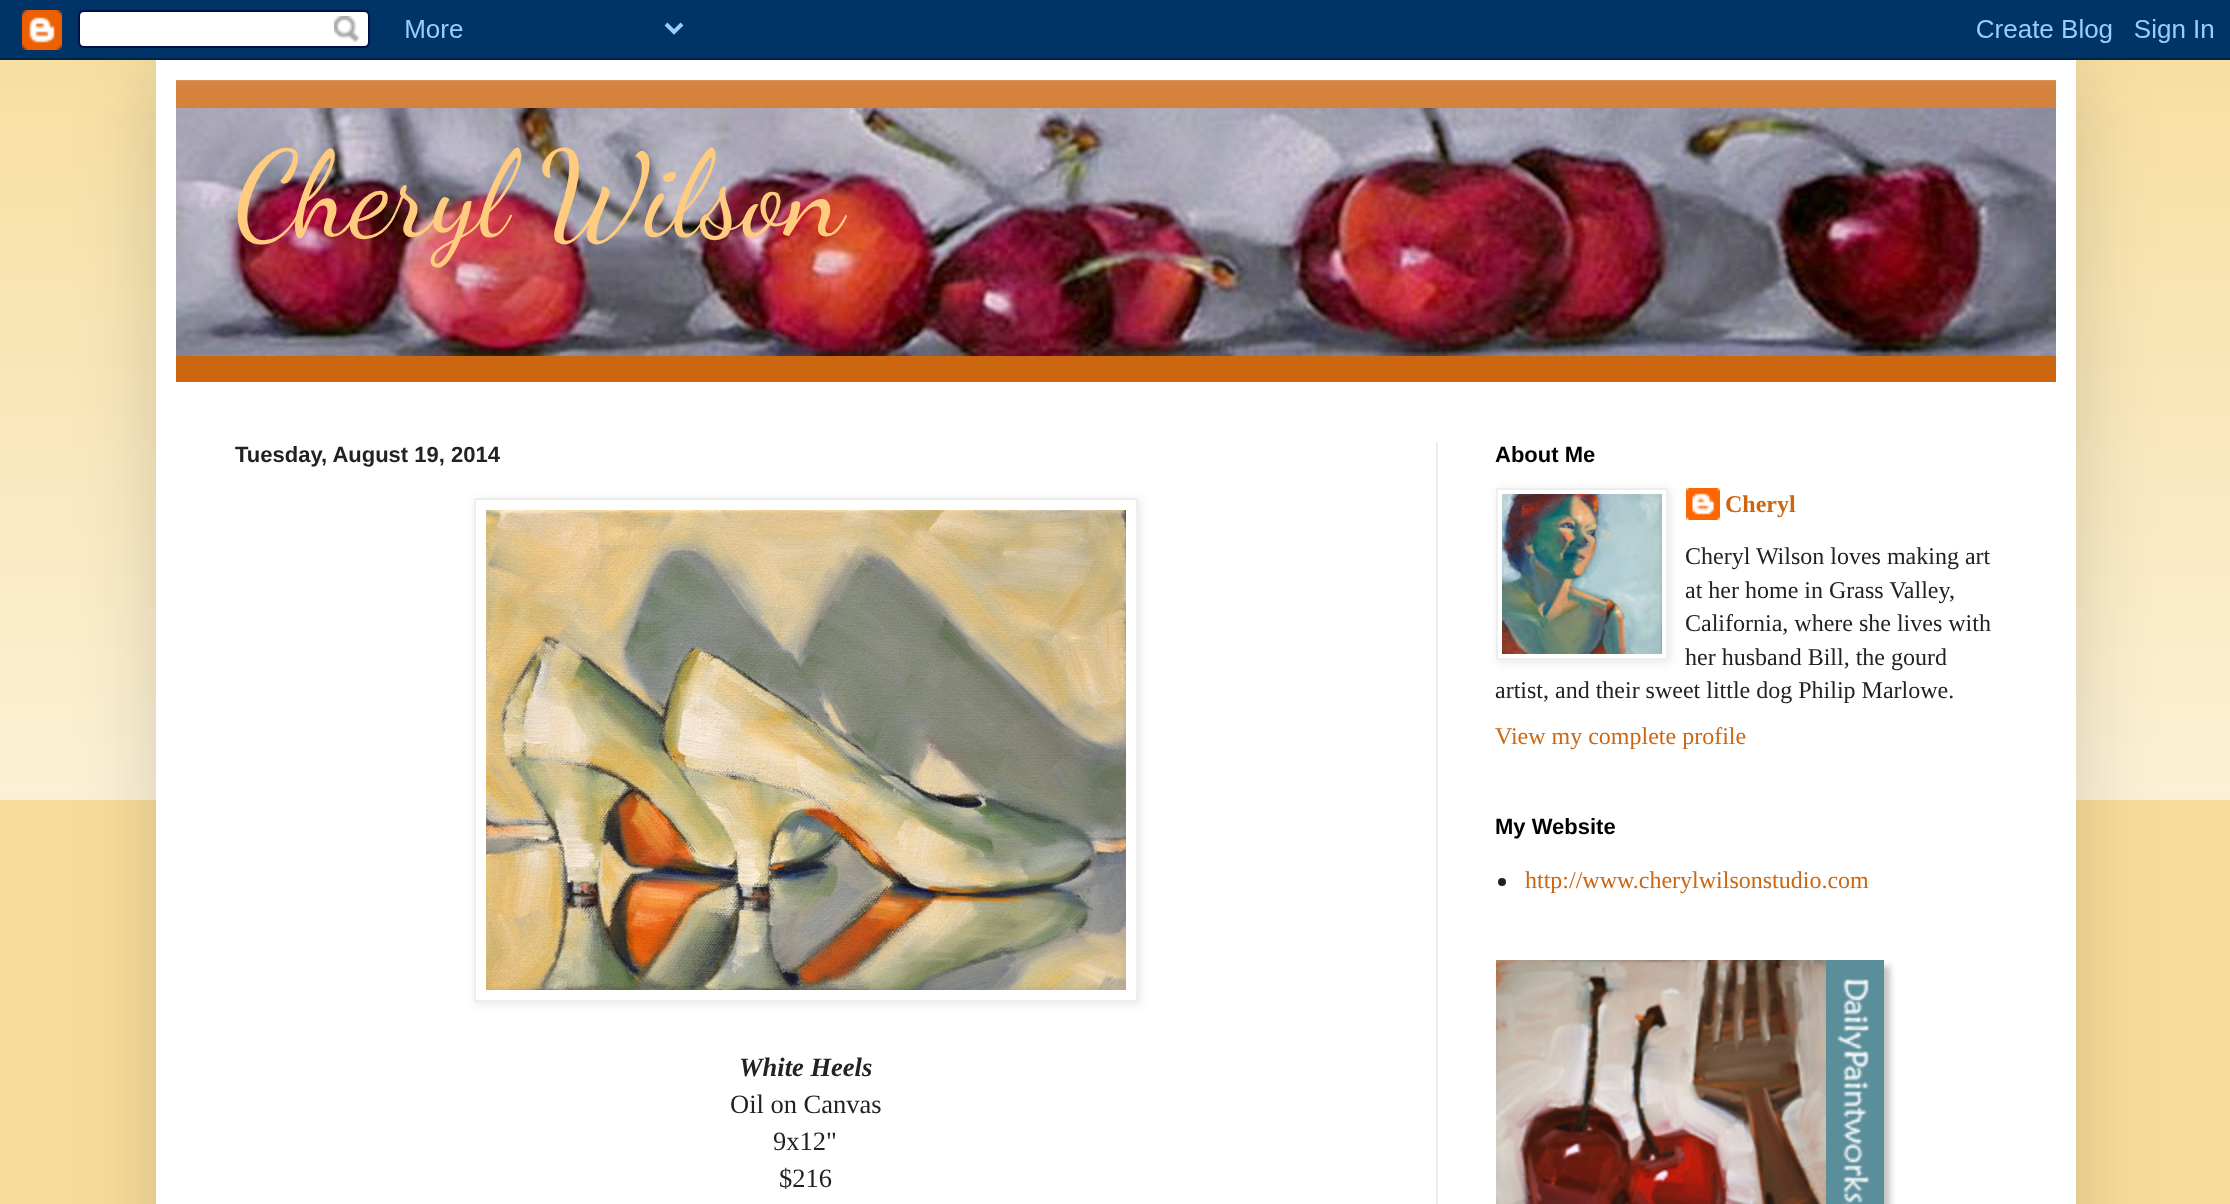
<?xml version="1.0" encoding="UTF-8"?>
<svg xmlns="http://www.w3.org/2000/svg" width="2230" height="1204">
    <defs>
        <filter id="blur1" x="-50%" y="-200%" width="200%" height="500%"><feGaussianBlur stdDeviation="40"/></filter>
        <clipPath id="clip1"><path d="M 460 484 H 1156 V 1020 H 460 Z M 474 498 H 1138 V 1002 H 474 Z" clip-rule="evenodd"/></clipPath>
        <filter id="blur2" x="-50%" y="-200%" width="200%" height="500%"><feGaussianBlur stdDeviation="5"/></filter>
        <clipPath id="clip2"><path d="M 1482 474 H 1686 V 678 H 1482 Z M 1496 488 H 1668 V 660 H 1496 Z" clip-rule="evenodd"/></clipPath>
        <filter id="blur3" x="-50%" y="-200%" width="200%" height="500%"><feGaussianBlur stdDeviation="3"/></filter>
    </defs>
    <rect width="100%" height="100%" fill="#F7DC99"/>
    <image x="0" y="60" width="2230" height="740" href="img_02.png"/>
    <rect x="156" y="60" width="1920" height="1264" fill="#000000" fill-opacity="0.15" filter="url(#blur1)"/>
    <image x="0" y="0" width="2230" height="60" href="img_01.png"/>
    <rect x="156" y="60" width="1920" height="1144" fill="#FFFFFF"/>
    <rect x="176" y="80" width="1880" height="302" fill="#CC6611"/>
    <image x="176" y="80" width="1880" height="28" href="img_03.png"/>
    <image x="176" y="108" width="1880" height="248" href="img_04.png"/>
    <text x="235" y="234" font-family="Dancing Script" font-size="120" fill="#FFCC7F">Cheryl Wilson</text>
    <rect x="1436" y="442" width="2" height="762" fill="#EEEEEE"/>
    <text x="235" y="462" font-family="Liberation Sans" font-size="22" font-weight="700" fill="#222222">Tuesday, August 19, 2014</text>
    <g clip-path="url(#clip1)">
        <rect x="476" y="500" width="664" height="504" fill="#000000" fill-opacity="0.1" filter="url(#blur2)"/>
    </g>
    <rect x="475" y="499" width="662" height="502" fill="none" stroke="#EEEEEE" stroke-width="2"/>
    <image x="486" y="510" width="640" height="480" href="img_05.png"/>
    <text x="739" y="1076" font-family="Liberation Serif" font-size="26.5" font-weight="700" font-style="italic" fill="#222222">White Heels</text>
    <text x="730" y="1113" font-family="Liberation Serif" font-size="26.5" fill="#222222">Oil on Canvas</text>
    <text x="773" y="1150" font-family="Liberation Serif" font-size="26.5" fill="#222222">9x12"</text>
    <text x="779" y="1187" font-family="Liberation Serif" font-size="26.5" fill="#222222">$216</text>
    <text x="1495" y="462" font-family="Liberation Sans" font-size="22" font-weight="700" fill="#000000">About Me</text>
    <g clip-path="url(#clip2)">
        <rect x="1498" y="490" width="172" height="172" fill="#000000" fill-opacity="0.1" filter="url(#blur2)"/>
    </g>
    <rect x="1497" y="489" width="170" height="170" fill="none" stroke="#EEEEEE" stroke-width="2"/>
    <image x="1502" y="494" width="160" height="160" href="img_06.png"/>
    <image x="1686" y="488" width="34" height="32" href="img_07.png"/>
    <text x="1725" y="512" font-family="Liberation Serif" font-size="24" font-weight="700" fill="#CC6611">Cheryl</text>
    <text font-family="Liberation Serif" font-size="24" fill="#222222">
        <tspan x="1685" y="564">Cheryl Wilson loves making art</tspan>
        <tspan x="1685" y="598">at her home in Grass Valley,</tspan>
        <tspan x="1685" y="631">California, where she lives with</tspan>
        <tspan x="1685" y="665">her husband Bill, the gourd</tspan>
    </text>
    <text x="1495" y="698" font-family="Liberation Serif" font-size="24" fill="#222222">artist, and their sweet little dog Philip Marlowe.</text>
    <text x="1495" y="744" font-family="Liberation Serif" font-size="24" fill="#CC6611">View my complete profile</text>
    <text x="1495" y="834" font-family="Liberation Sans" font-size="22" font-weight="700" fill="#000000">My Website</text>
    <circle cx="1502" cy="882" r="4" fill="#222222"/>
    <text x="1525" y="888" font-family="Liberation Serif" font-size="24" fill="#CC6611">http://www.cherylwilsonstudio.com</text>
    <rect x="1502" y="966" width="388" height="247" fill="#000000" fill-opacity="0.23" filter="url(#blur3)"/>
    <image x="1496" y="960" width="330" height="244" href="img_08.png"/>
    <image x="1826" y="960" width="58" height="244" href="img_09.png"/>
</svg>
